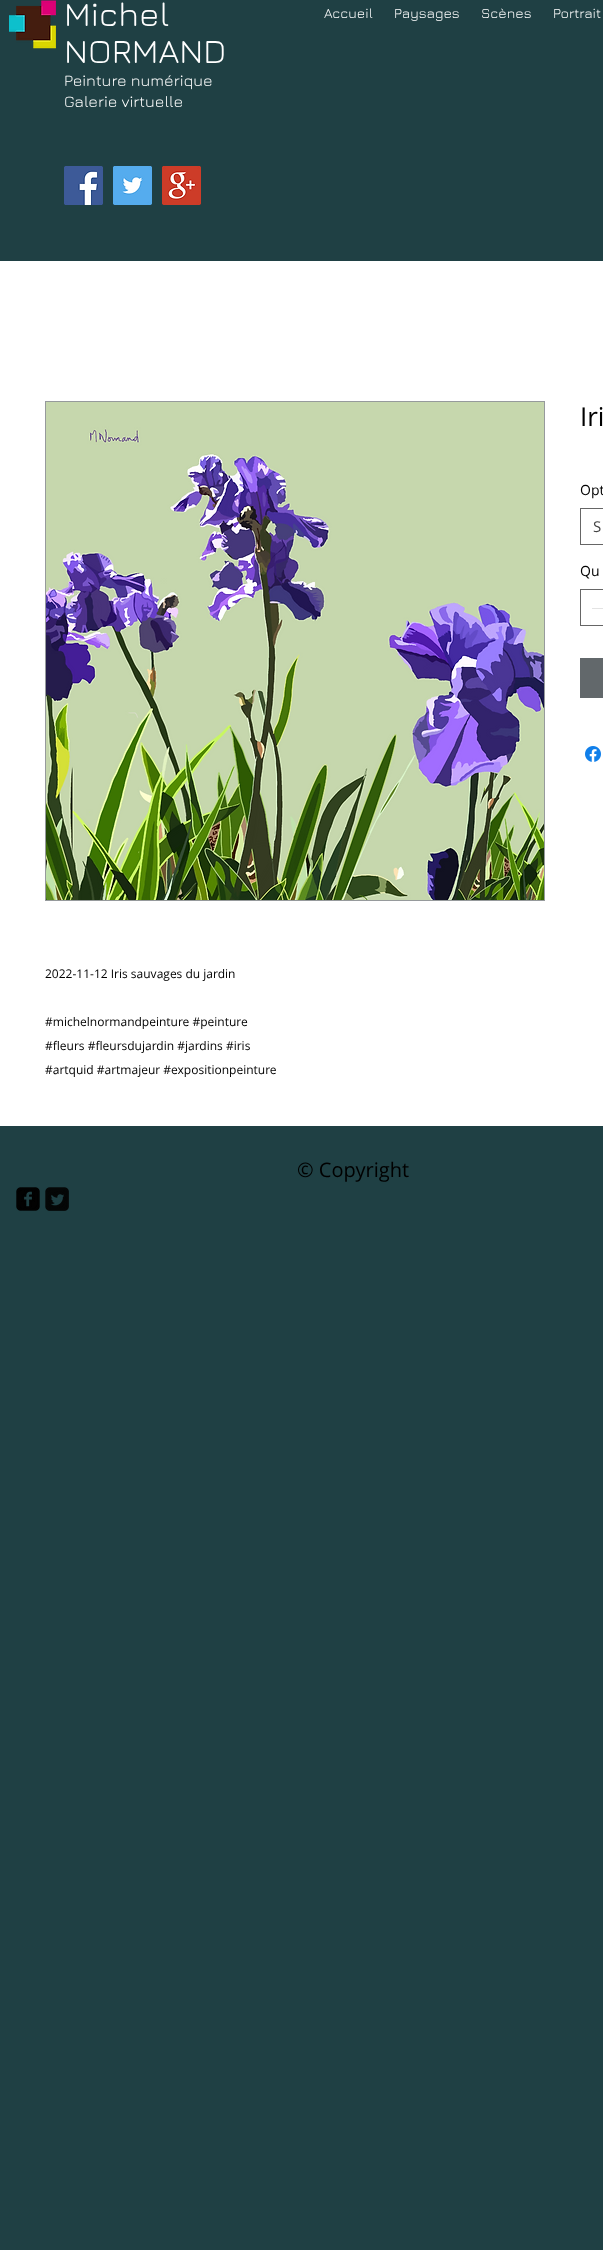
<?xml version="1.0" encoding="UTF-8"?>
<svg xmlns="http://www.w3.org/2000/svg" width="603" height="2250">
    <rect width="100%" height="100%" fill="#1F4044"/>
    <image x="9" y="0" width="47" height="49" href="img_01.png"/>
    <text font-family="Jura" font-size="34" fill="#FFFFFF">
        <tspan x="64" y="26">Michel</tspan>
        <tspan x="64" y="63">NORMAND</tspan>
    </text>
    <text font-family="Jura" font-size="16" fill="#FFFFFF">
        <tspan x="64" y="86">Peinture numérique</tspan>
        <tspan x="64" y="107">Galerie virtuelle</tspan>
    </text>
    <text x="324" y="18" font-family="Jura" font-size="14" fill="#FFFFFF">Accueil</text>
    <text x="394" y="18" font-family="Jura" font-size="14" fill="#FFFFFF">Paysages</text>
    <text x="481" y="18" font-family="Jura" font-size="14" fill="#FFFFFF">Scènes</text>
    <text x="553" y="18" font-family="Jura" font-size="14" fill="#FFFFFF">Portrait</text>
    <image x="64" y="166" width="39" height="39" href="img_02.png"/>
    <image x="113" y="166" width="39" height="39" href="img_03.png"/>
    <image x="162" y="166" width="39" height="39" href="img_04.png"/>
    <rect x="0" y="261" width="603" height="865" fill="#FFFFFF"/>
    <text x="580" y="426" font-family="Open Sans" font-size="26" fill="#000000">Iri</text>
    <text x="580" y="495" font-family="Open Sans" font-size="14" fill="#000000">Opt</text>
    <rect x="580.5" y="508.5" width="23" height="36" fill="none" stroke="#666666"/>
    <text x="593" y="532" font-family="Open Sans" font-size="15" fill="#444444">S</text>
    <text x="580" y="576" font-family="Open Sans" font-size="14" fill="#000000">Qu</text>
    <rect x="580.5" y="589.5" width="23" height="36" fill="none" stroke="#666666"/>
    <rect x="592" y="608" width="11" height="1" fill="#E3E3E3"/>
    <rect x="580" y="658" width="23" height="40" fill="#62686B"/>
    <image x="585" y="746" width="16" height="16" href="img_05.png"/>
    <rect x="45.5" y="401.5" width="499" height="499" fill="none" stroke="#969A9C"/>
    <image x="46" y="402" width="498" height="498" href="img_06.png"/>
    <text x="45" y="978" font-family="Open Sans" font-size="12" fill="#000000">2022-11-12 Iris sauvages du jardin</text>
    <text x="45" y="1026" font-family="Open Sans" font-size="12" fill="#000000">#michelnormandpeinture #peinture</text>
    <text x="45" y="1050" font-family="Open Sans" font-size="12" fill="#000000">#fleurs #fleursdujardin #jardins #iris</text>
    <text x="45" y="1074" font-family="Open Sans" font-size="12" fill="#000000">#artquid #artmajeur #expositionpeinture</text>
    <text x="297" y="1177" font-family="Open Sans" font-size="20" fill="#000000">© Copyright</text>
    <image x="16" y="1187" width="24" height="24" href="img_07.png"/>
    <image x="45" y="1187" width="24" height="24" href="img_08.png"/>
</svg>
